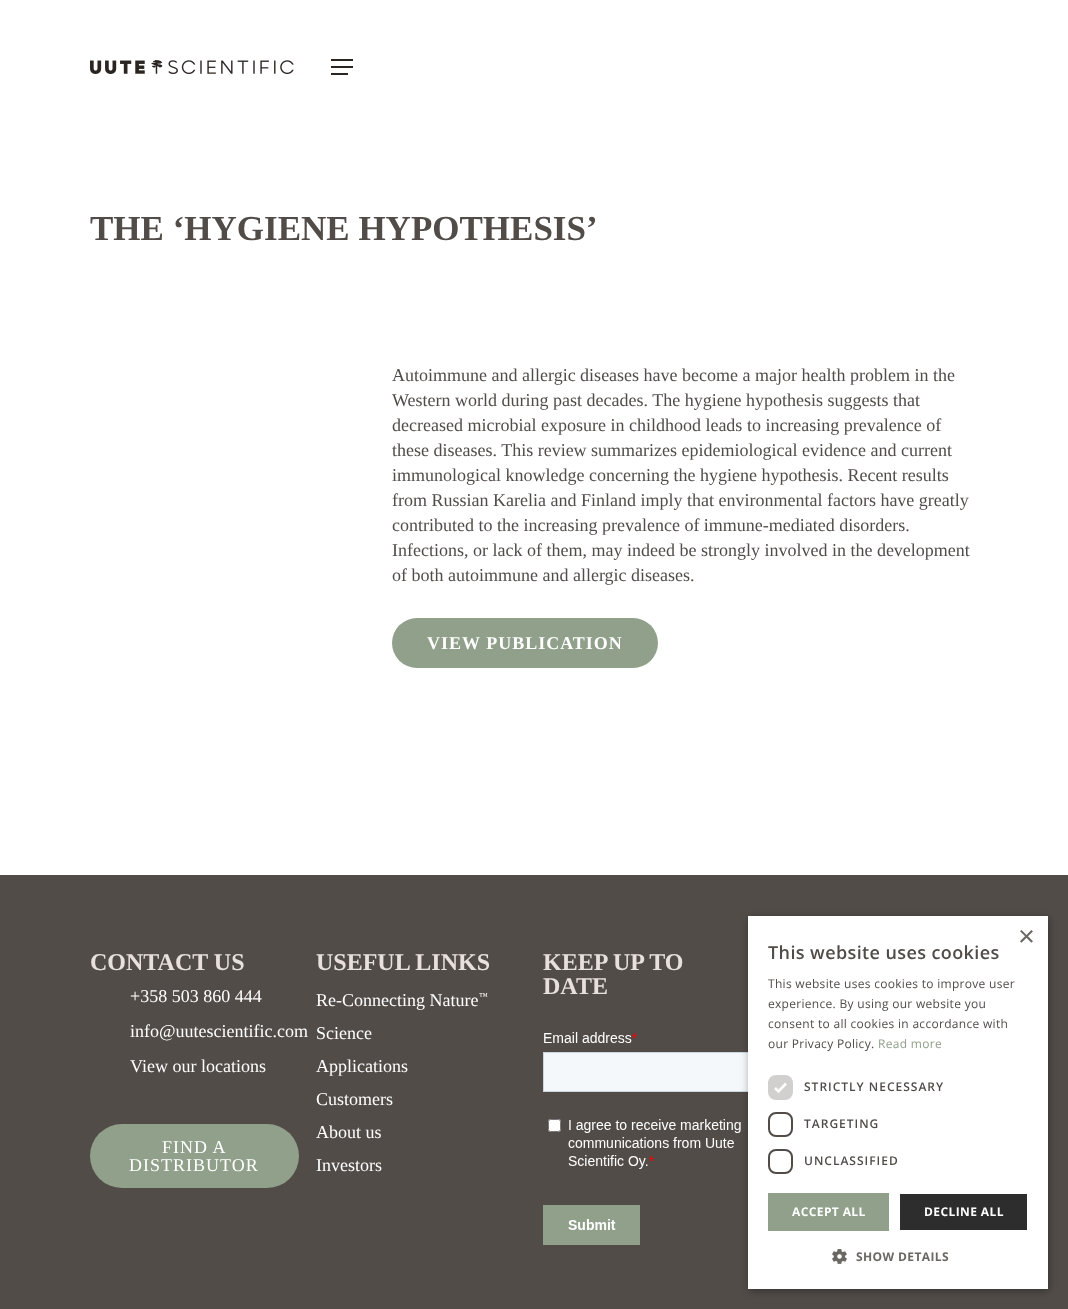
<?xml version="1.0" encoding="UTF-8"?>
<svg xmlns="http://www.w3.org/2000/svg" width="1068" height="1309">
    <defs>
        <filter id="blur1" x="-50%" y="-200%" width="200%" height="500%"><feGaussianBlur stdDeviation="4"/></filter>
    </defs>
    <rect width="100%" height="100%" fill="#FFFFFF"/>
    <image x="90" y="60" width="204" height="14" href="img_01.png"/>
    <rect x="331" y="59" width="22" height="2" fill="#2B2522"/>
    <rect x="331" y="73" width="17" height="2" fill="#2B2522"/>
    <rect x="331" y="66" width="22" height="2" fill="#2B2522"/>
    <text x="90" y="240" font-family="Liberation Serif" font-size="35" font-weight="700" fill="#514C48">THE ‘HYGIENE HYPOTHESIS’</text>
    <text font-family="Liberation Serif" font-size="18" fill="#514C48">
        <tspan x="392" y="381">Autoimmune and allergic diseases have become a major health problem in the</tspan>
        <tspan x="392" y="406">Western world during past decades. The hygiene hypothesis suggests that</tspan>
        <tspan x="392" y="431">decreased microbial exposure in childhood leads to increasing prevalence of</tspan>
        <tspan x="392" y="456">these diseases. This review summarizes epidemiological evidence and current</tspan>
        <tspan x="392" y="481">immunological knowledge concerning the hygiene hypothesis. Recent results</tspan>
        <tspan x="392" y="506">from Russian Karelia and Finland imply that environmental factors have greatly</tspan>
        <tspan x="392" y="531">contributed to the increasing prevalence of immune-mediated disorders.</tspan>
        <tspan x="392" y="556">Infections, or lack of them, may indeed be strongly involved in the development</tspan>
        <tspan x="392" y="581">of both autoimmune and allergic diseases.</tspan>
    </text>
    <rect x="392" y="618" width="266" height="50" rx="25" fill="#90A08A"/>
    <text x="427" y="649" font-family="Liberation Serif" font-size="18" font-weight="700" letter-spacing="1" fill="#FFFFFF">VIEW PUBLICATION</text>
    <rect x="0" y="875" width="1068" height="434" fill="#514C48"/>
    <text x="90" y="970" font-family="Liberation Serif" font-size="24" font-weight="700" fill="#E8E0DD">CONTACT US</text>
    <text font-family="Liberation Serif" font-size="18" fill="#FFFFFF">
        <tspan x="130" y="1002">+358 503 860 444</tspan>
        <tspan x="130" y="1037">info@uutescientific.com</tspan>
        <tspan x="130" y="1072">View our locations</tspan>
    </text>
    <rect x="90" y="1124" width="209" height="64" rx="32" fill="#90A08A"/>
    <text x="162" y="1153" font-family="Liberation Serif" font-size="18" letter-spacing="1" fill="#FFFFFF">FIND A</text>
    <text x="129" y="1171" font-family="Liberation Serif" font-size="18" letter-spacing="1" fill="#FFFFFF">DISTRIBUTOR</text>
    <text x="316" y="970" font-family="Liberation Serif" font-size="24" font-weight="700" fill="#E8E0DD">USEFUL LINKS</text>
    <text x="316" y="1006" font-family="Liberation Serif" font-size="18" fill="#FFFFFF">Re-Connecting Nature</text>
    <text x="479" y="999" font-family="Liberation Serif" font-size="9" fill="#FFFFFF">™</text>
    <text font-family="Liberation Serif" font-size="18" fill="#FFFFFF">
        <tspan x="316" y="1039">Science</tspan>
        <tspan x="316" y="1072">Applications</tspan>
        <tspan x="316" y="1105">Customers</tspan>
        <tspan x="316" y="1138">About us</tspan>
        <tspan x="316" y="1171">Investors</tspan>
    </text>
    <text font-family="Liberation Serif" font-size="24" font-weight="700" fill="#E8E0DD">
        <tspan x="543" y="970">KEEP UP TO</tspan>
        <tspan x="543" y="994">DATE</tspan>
    </text>
    <image x="543" y="1032" width="205" height="213" href="img_02.png"/>
    <rect x="749" y="918" width="300" height="373" fill="#000000" fill-opacity="0.35" filter="url(#blur1)"/>
    <rect x="748" y="916" width="300" height="373" fill="#FFFFFF"/>
    <text x="1018" y="946" font-family="Liberation Sans" font-size="29" fill="#6B6763">×</text>
    <text x="768" y="959" font-family="Open Sans" font-size="18" font-weight="600" letter-spacing="0.4" fill="#514C48">This website uses cookies</text>
    <text font-family="Open Sans" font-size="12" letter-spacing="0.3" fill="#514C48">
        <tspan x="768" y="988">This website uses cookies to improve user</tspan>
        <tspan x="768" y="1008">experience. By using our website you</tspan>
        <tspan x="768" y="1028">consent to all cookies in accordance with</tspan>
        <tspan x="768" y="1048">our Privacy Policy.</tspan>
    </text>
    <text x="878" y="1048" font-family="Open Sans" font-size="12" letter-spacing="0.3" fill="#90A08A">Read more</text>
    <rect x="768" y="1075" width="25" height="25" rx="8" fill="#D2D0CF"/>
    <path d="M 775 1088 L 778.5 1091.5 L 786 1083.5" fill="none" stroke="#FFFFFF" stroke-width="2.6"/>
    <text x="804" y="1091" font-family="Open Sans" font-size="12" font-weight="600" letter-spacing="1" fill="#514C48">STRICTLY NECESSARY</text>
    <rect x="769" y="1113" width="23" height="23" rx="7" fill="none" stroke="#514C48" stroke-width="2"/>
    <text x="804" y="1128" font-family="Open Sans" font-size="12" font-weight="600" letter-spacing="1" fill="#514C48">TARGETING</text>
    <rect x="769" y="1150" width="23" height="23" rx="7" fill="none" stroke="#514C48" stroke-width="2"/>
    <text x="804" y="1165" font-family="Open Sans" font-size="12" font-weight="600" letter-spacing="1" fill="#514C48">UNCLASSIFIED</text>
    <rect x="768" y="1193" width="121" height="38" fill="#90A08A"/>
    <text x="792" y="1216" font-family="Open Sans" font-size="12" font-weight="700" letter-spacing="0.4" fill="#FFFFFF">ACCEPT ALL</text>
    <rect x="900" y="1194" width="127" height="36" fill="#2D2D2D"/>
    <text x="924" y="1216" font-family="Open Sans" font-size="12" font-weight="700" letter-spacing="0.4" fill="#FFFFFF">DECLINE ALL</text>
    <image x="832" y="1249" width="15" height="15" href="img_03.png"/>
    <text x="856" y="1261" font-family="Open Sans" font-size="12" font-weight="700" letter-spacing="0.4" fill="#6B6763">SHOW DETAILS</text>
</svg>
